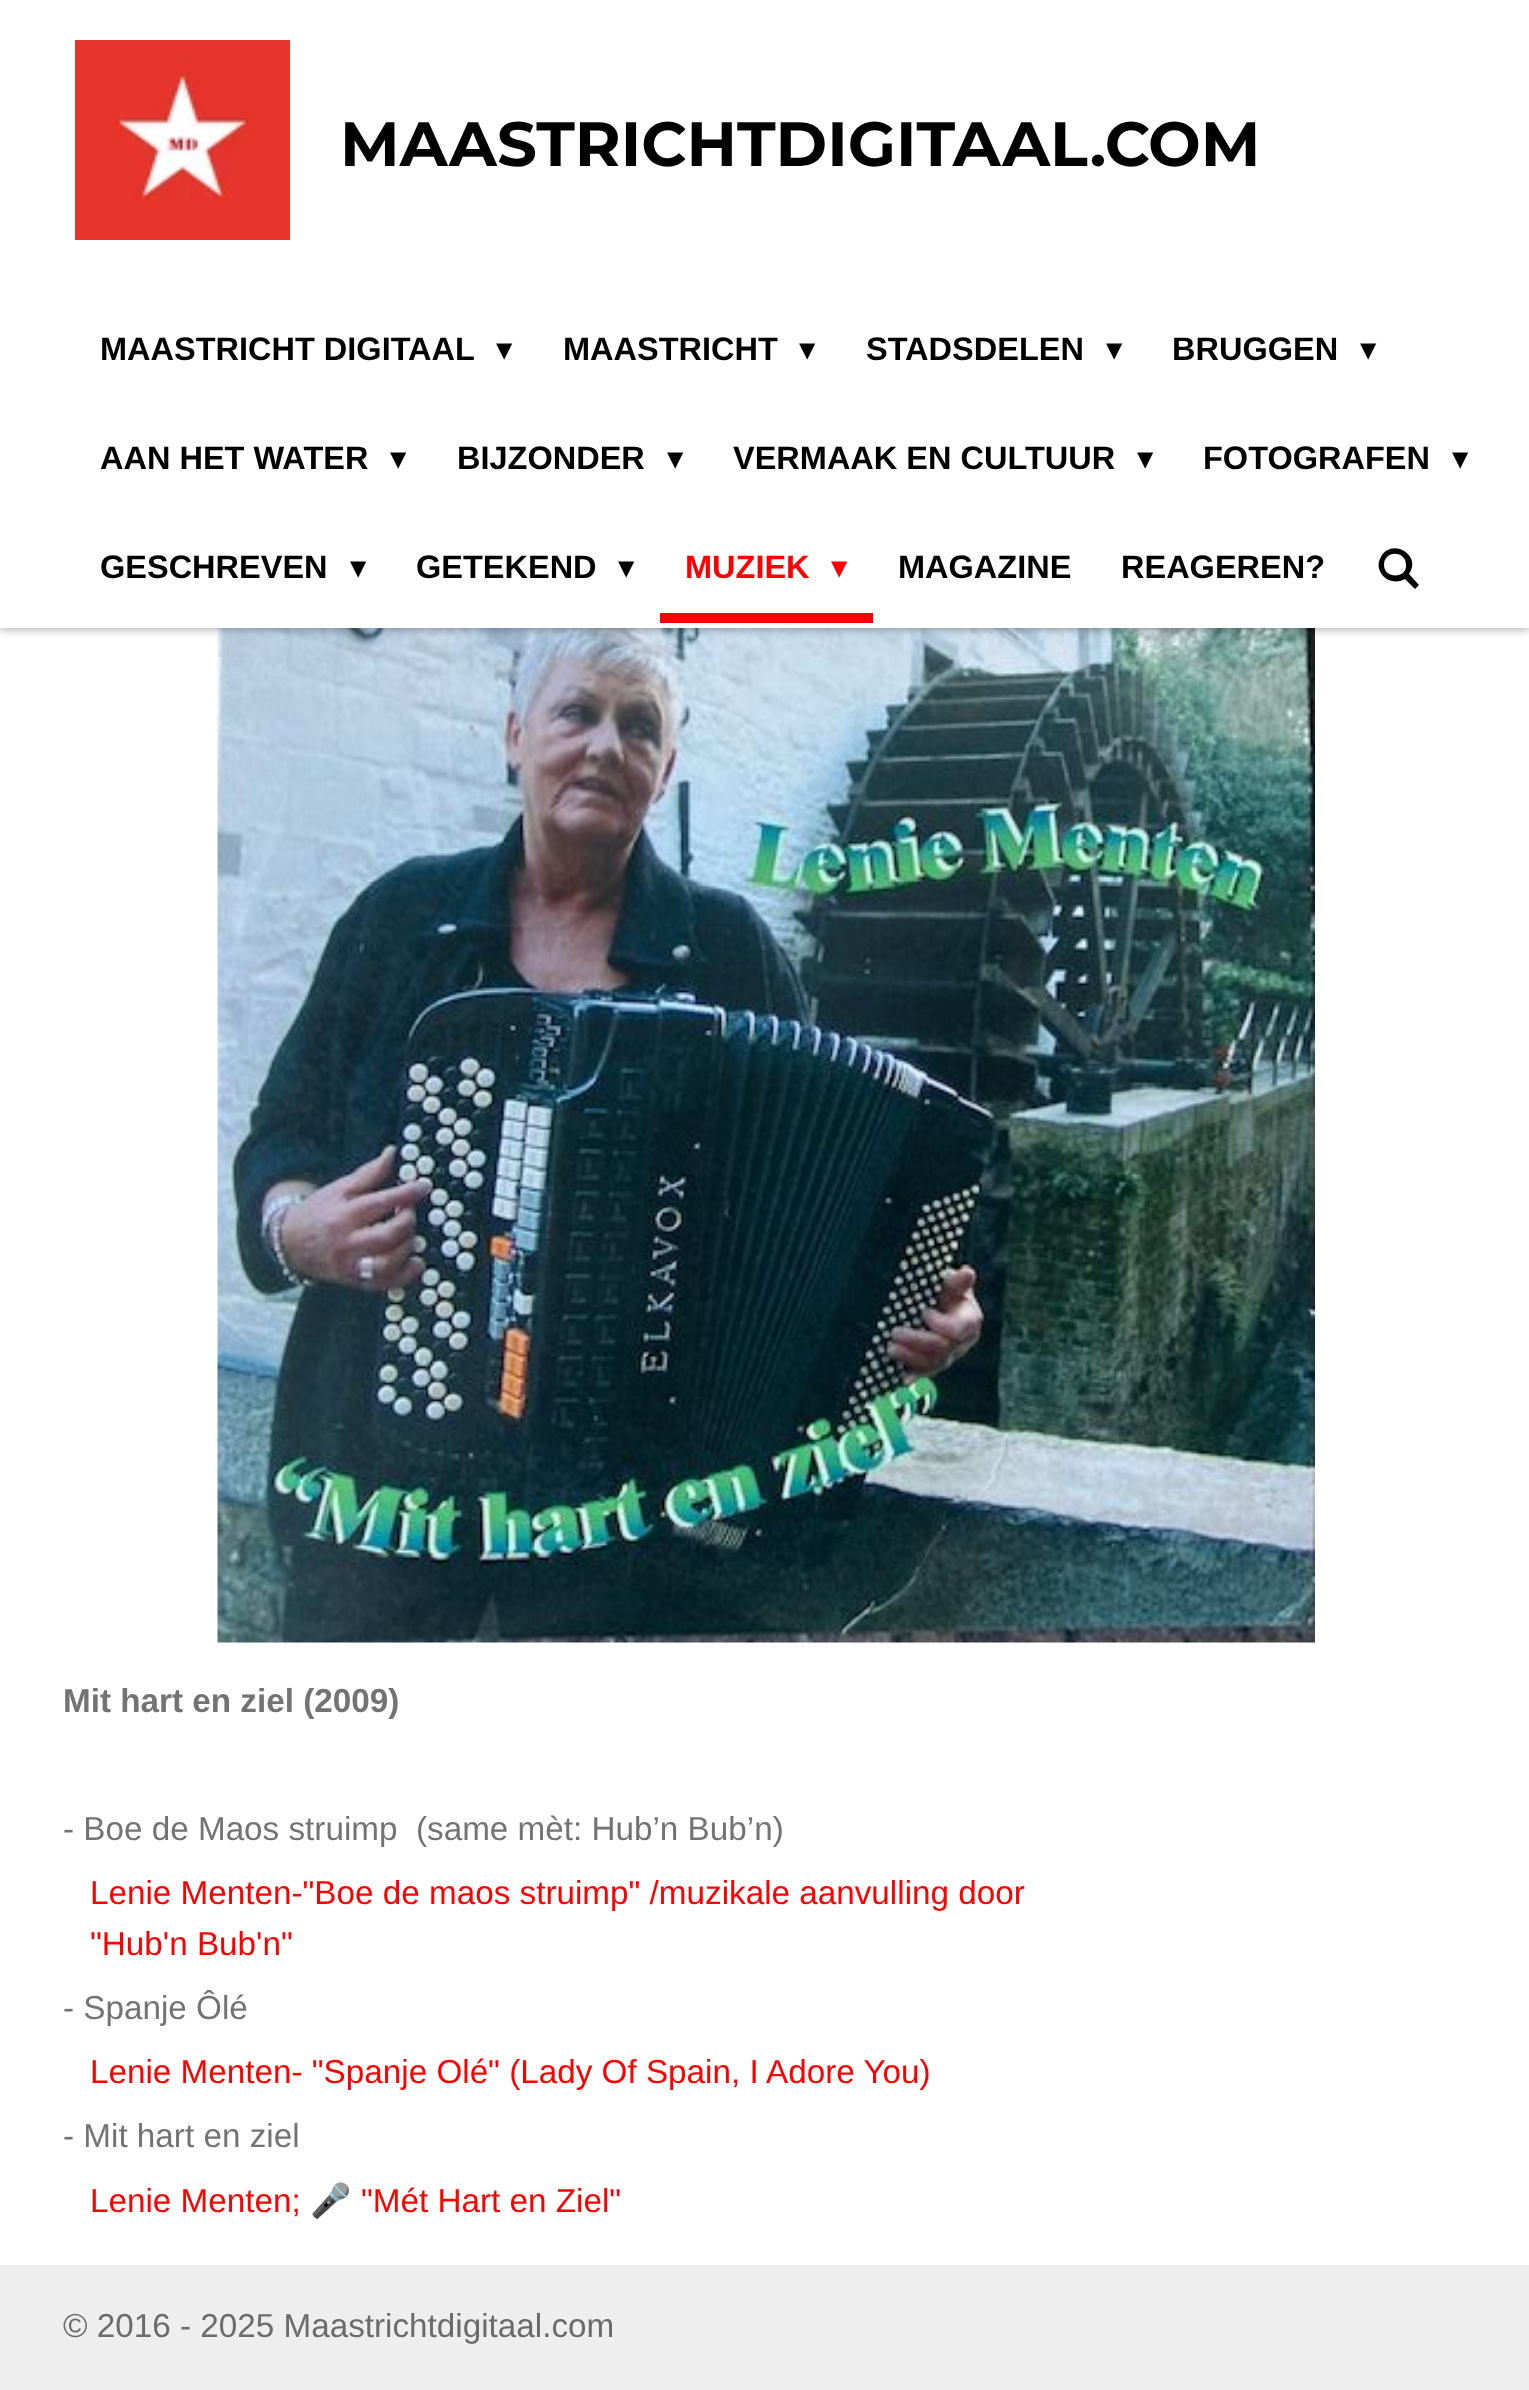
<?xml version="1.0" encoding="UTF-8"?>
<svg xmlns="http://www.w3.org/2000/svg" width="1529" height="2390">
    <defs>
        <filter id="blur1" x="-50%" y="-200%" width="200%" height="500%"><feGaussianBlur stdDeviation="4"/></filter>
    </defs>
    <rect width="100%" height="100%" fill="#FFFFFF"/>
    <image x="217" y="628" width="1098" height="1015" href="img_02.png"/>
    <rect x="0" y="3" width="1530" height="627" fill="#000000" fill-opacity="0.3" filter="url(#blur1)"/>
    <rect x="0" y="0" width="1529" height="628" fill="#FFFFFF"/>
    <image x="75" y="40" width="215" height="200" href="img_01.png"/>
    <text x="340" y="166" font-family="Montserrat" font-size="62.5" font-weight="100" fill="#000000">MAASTRICHTDIGITAAL.COM</text>
    <text x="100" y="360" font-family="Liberation Sans" font-size="32.5" font-weight="700" fill="#000000">MAASTRICHT DIGITAAL</text>
    <text x="496" y="360" font-family="DejaVu Sans" font-size="32.5" fill="#000000">▾</text>
    <text x="563" y="360" font-family="Liberation Sans" font-size="32.5" font-weight="700" fill="#000000">MAASTRICHT</text>
    <text x="799" y="360" font-family="DejaVu Sans" font-size="32.5" fill="#000000">▾</text>
    <text x="866" y="360" font-family="Liberation Sans" font-size="32.5" font-weight="700" fill="#000000">STADSDELEN</text>
    <text x="1106" y="360" font-family="DejaVu Sans" font-size="32.5" fill="#000000">▾</text>
    <text x="1172" y="360" font-family="Liberation Sans" font-size="32.5" font-weight="700" fill="#000000">BRUGGEN</text>
    <text x="1360" y="360" font-family="DejaVu Sans" font-size="32.5" fill="#000000">▾</text>
    <text x="100" y="469" font-family="Liberation Sans" font-size="32.5" font-weight="700" fill="#000000">AAN HET WATER</text>
    <text x="390" y="469" font-family="DejaVu Sans" font-size="32.5" fill="#000000">▾</text>
    <text x="457" y="469" font-family="Liberation Sans" font-size="32.5" font-weight="700" fill="#000000">BIJZONDER</text>
    <text x="667" y="469" font-family="DejaVu Sans" font-size="32.5" fill="#000000">▾</text>
    <text x="733" y="469" font-family="Liberation Sans" font-size="32.5" font-weight="700" fill="#000000">VERMAAK EN CULTUUR</text>
    <text x="1137" y="469" font-family="DejaVu Sans" font-size="32.5" fill="#000000">▾</text>
    <text x="1203" y="469" font-family="Liberation Sans" font-size="32.5" font-weight="700" fill="#000000">FOTOGRAFEN</text>
    <text x="1452" y="469" font-family="DejaVu Sans" font-size="32.5" fill="#000000">▾</text>
    <text x="100" y="578" font-family="Liberation Sans" font-size="32.5" font-weight="700" fill="#000000">GESCHREVEN</text>
    <text x="350" y="578" font-family="DejaVu Sans" font-size="32.5" fill="#000000">▾</text>
    <text x="416" y="578" font-family="Liberation Sans" font-size="32.5" font-weight="700" fill="#000000">GETEKEND</text>
    <text x="618" y="578" font-family="DejaVu Sans" font-size="32.5" fill="#000000">▾</text>
    <rect x="660" y="613" width="213" height="10" fill="#FF0000"/>
    <text x="685" y="578" font-family="Liberation Sans" font-size="32.5" font-weight="700" fill="#FF0000">MUZIEK</text>
    <text x="831" y="578" font-family="DejaVu Sans" font-size="32.5" fill="#FF0000">▾</text>
    <text x="898" y="578" font-family="Liberation Sans" font-size="32.5" font-weight="700" fill="#000000">MAGAZINE</text>
    <text x="1121" y="578" font-family="Liberation Sans" font-size="32.5" font-weight="700" fill="#000000">REAGEREN?</text>
    <path d="M 1409 574 L 1419 585 L 1415 589 L 1405 579 C 1397 584 1385 581 1381 573 C 1378 568 1378 563 1380 559 C 1389 536 1423 554 1409 574 Z M 1406 565 C 1406 550 1384 550 1384 565 C 1384 579 1407 579 1406 565 Z" fill="#000000"/>
    <text x="63" y="1712" font-family="Liberation Sans" font-size="33.25" font-weight="700" fill="#737373">Mit hart en ziel (2009)</text>
    <text x="63" y="1840" font-family="Liberation Sans" font-size="33.25" fill="#737373" xml:space="preserve">- Boe de Maos struimp  (same mèt: Hub’n Bub’n)</text>
    <text font-family="Liberation Sans" font-size="33.25" fill="#FF0000">
        <tspan x="90" y="1904">Lenie Menten-"Boe de maos struimp" /muzikale aanvulling door</tspan>
        <tspan x="90" y="1955">"Hub'n Bub'n"</tspan>
    </text>
    <text x="63" y="2019" font-family="Liberation Sans" font-size="33.25" fill="#737373">- Spanje Ôlé</text>
    <text x="90" y="2083" font-family="Liberation Sans" font-size="33.25" fill="#FF0000">Lenie Menten- "Spanje Olé" (Lady Of Spain, I Adore You)</text>
    <text x="63" y="2147" font-family="Liberation Sans" font-size="33.25" fill="#737373">- Mit hart en ziel</text>
    <text x="90" y="2212" font-family="Liberation Sans" font-size="33.25" fill="#FF0000">Lenie Menten;</text>
    <text x="310" y="2212" font-family="Noto Color Emoji" font-size="33.25" fill="#FF0000">🎤</text>
    <text x="361" y="2212" font-family="Liberation Sans" font-size="33.25" fill="#FF0000">"Mét Hart en Ziel"</text>
    <rect x="0" y="2265" width="1529" height="125" fill="#EEEEEE"/>
    <text x="63" y="2337" font-family="Liberation Sans" font-size="33.25" fill="#6B6B6B">© 2016 - 2025 Maastrichtdigitaal.com</text>
</svg>
